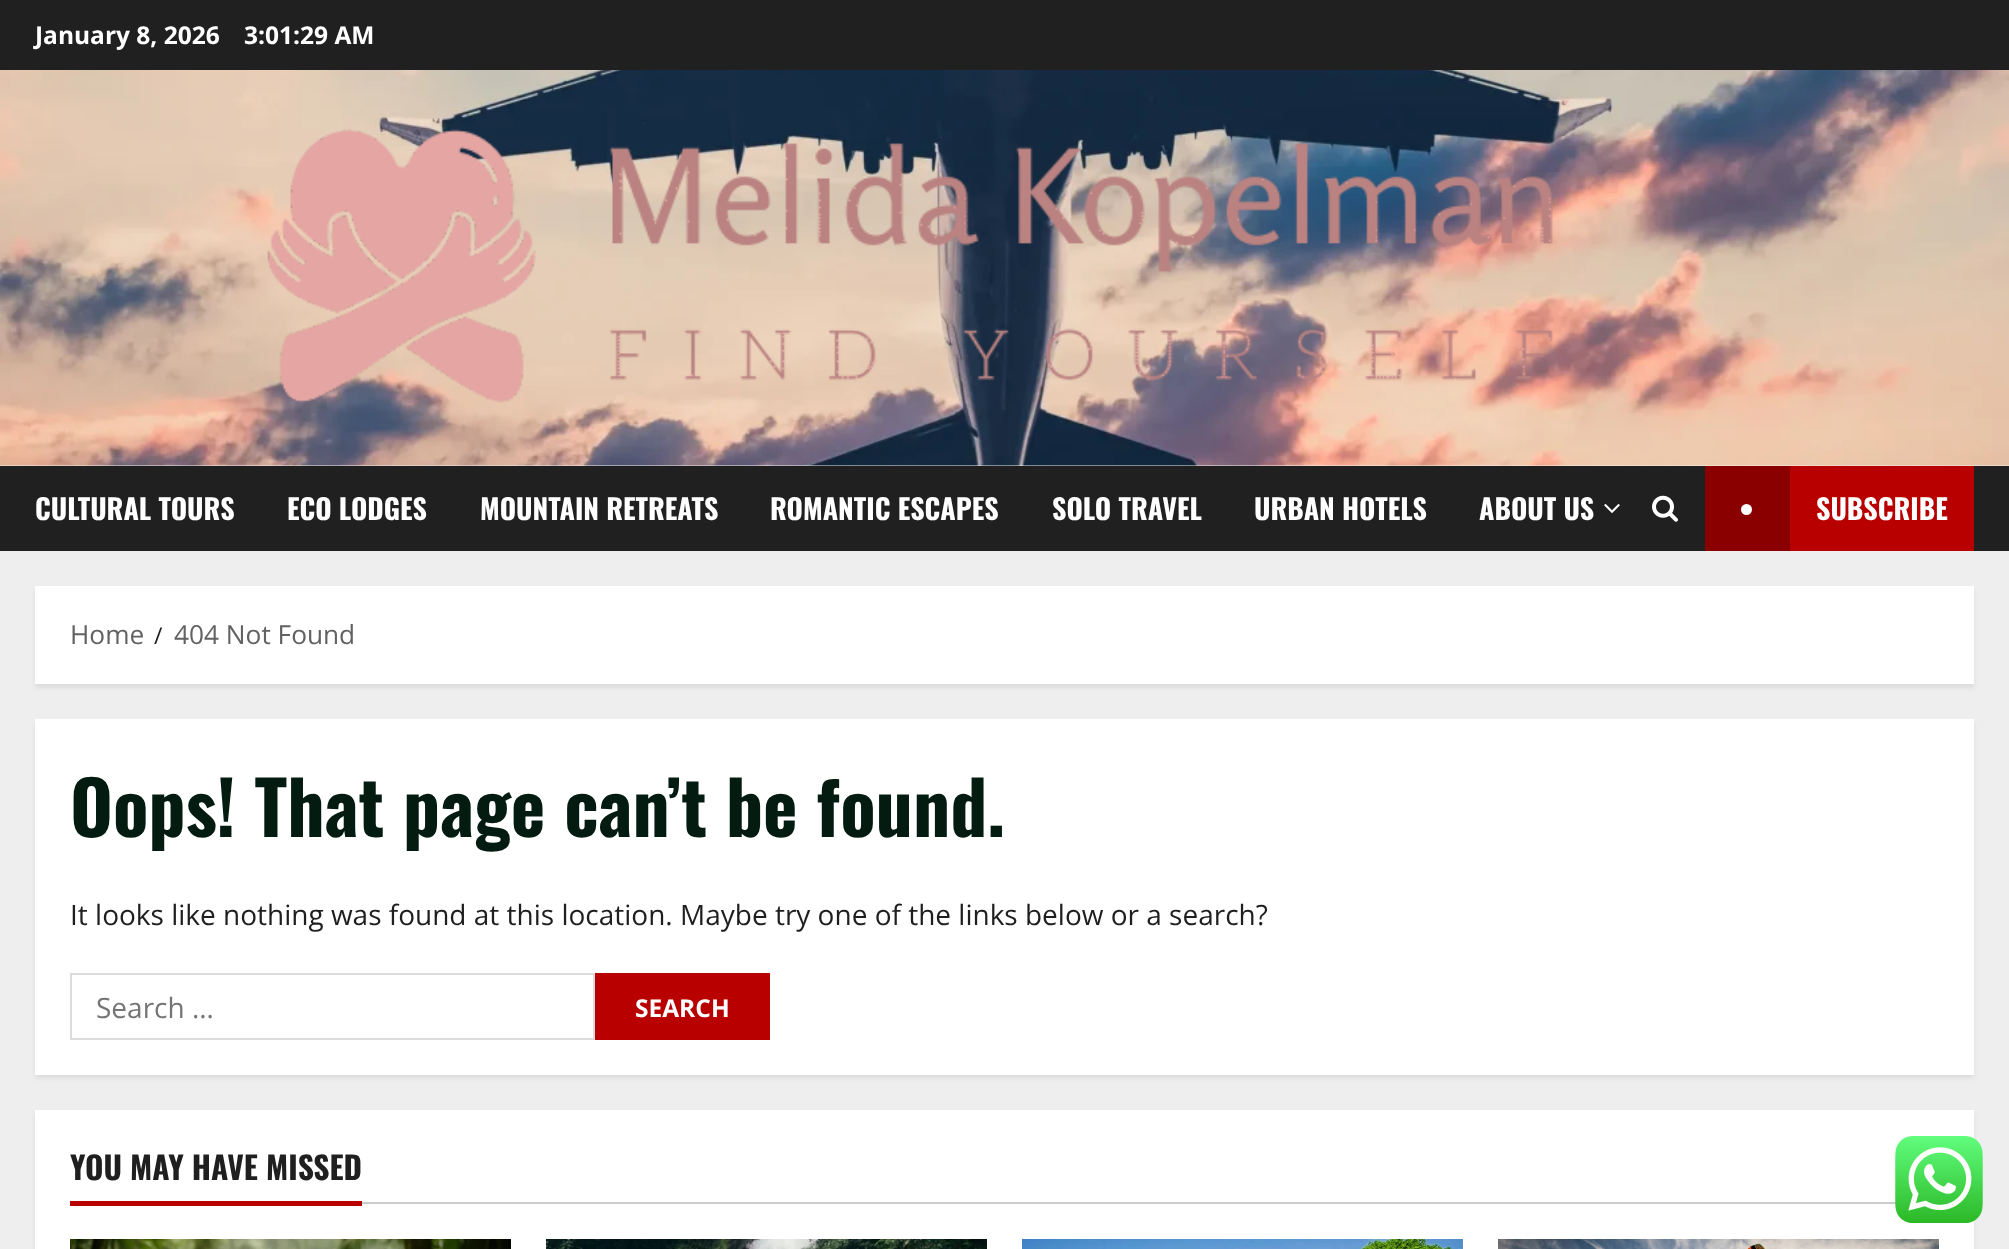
<?xml version="1.0" encoding="UTF-8"?>
<svg xmlns="http://www.w3.org/2000/svg" width="2009" height="1249">
    <defs>
        <filter id="blur1" x="-50%" y="-200%" width="200%" height="500%"><feGaussianBlur stdDeviation="2"/></filter>
    </defs>
    <rect width="100%" height="100%" fill="#EEEEEE"/>
    <rect x="0" y="0" width="2009" height="70" fill="#202020"/>
    <text x="35" y="44" font-family="Open Sans" font-size="24.5" font-weight="700" fill="#FFFFFF">January 8, 2026</text>
    <text x="244" y="44" font-family="Open Sans" font-size="24.5" font-weight="700" fill="#FFFFFF">3:01:29 AM</text>
    <image x="0" y="70" width="2009" height="396" href="img_01.png"/>
    <image x="267" y="129" width="1286" height="274" href="img_02.png"/>
    <rect x="0" y="466" width="2009" height="85" fill="#202020"/>
    <text x="35" y="520" font-family="Oswald" font-size="28" font-weight="700" fill="#FFFFFF">CULTURAL TOURS</text>
    <text x="287" y="520" font-family="Oswald" font-size="28" font-weight="700" fill="#FFFFFF">ECO LODGES</text>
    <text x="480" y="520" font-family="Oswald" font-size="28" font-weight="700" fill="#FFFFFF">MOUNTAIN RETREATS</text>
    <text x="770" y="520" font-family="Oswald" font-size="28" font-weight="700" fill="#FFFFFF">ROMANTIC ESCAPES</text>
    <text x="1052" y="520" font-family="Oswald" font-size="28" font-weight="700" fill="#FFFFFF">SOLO TRAVEL</text>
    <text x="1254" y="520" font-family="Oswald" font-size="28" font-weight="700" fill="#FFFFFF">URBAN HOTELS</text>
    <text x="1479" y="520" font-family="Oswald" font-size="28" font-weight="700" fill="#FFFFFF">ABOUT US</text>
    <image x="1604" y="504" width="16" height="9" href="img_03.png"/>
    <image x="1652" y="495" width="26" height="27" href="img_04.png"/>
    <rect x="1790" y="466" width="184" height="85" fill="#B80000"/>
    <rect x="1705" y="466" width="85" height="85" fill="#8A0000"/>
    <circle cx="1746.5" cy="509.5" r="5.5" fill="#FFFFFF"/>
    <text x="1816" y="520" font-family="Oswald" font-size="28" font-weight="700" fill="#FFFFFF">SUBSCRIBE</text>
    <rect x="35" y="590" width="1939" height="98" fill="#000000" fill-opacity="0.08" filter="url(#blur1)"/>
    <rect x="35" y="586" width="1939" height="98" fill="#FFFFFF"/>
    <text x="70" y="644" font-family="Open Sans" font-size="26.25" fill="#626262">Home</text>
    <text x="154" y="644" font-family="Open Sans" font-size="23" fill="#1F1F1F">/</text>
    <text x="174" y="644" font-family="Open Sans" font-size="26.25" fill="#626262">404 Not Found</text>
    <rect x="35" y="723" width="1939" height="355" fill="#000000" fill-opacity="0.08" filter="url(#blur1)"/>
    <rect x="35" y="719" width="1939" height="356" fill="#FFFFFF"/>
    <text x="70" y="837" font-family="Oswald" font-size="73.5" font-weight="700" fill="#031B11">Oops! That page can’t be found.</text>
    <text x="70" y="925" font-family="Open Sans" font-size="28" fill="#1F1F1F">It looks like nothing was found at this location. Maybe try one of the links below or a search?</text>
    <rect x="71" y="974" width="523" height="65" fill="none" stroke="#DCDCDC" stroke-width="2"/>
    <text x="96" y="1018" font-family="Open Sans" font-size="28" fill="#757575">Search …</text>
    <rect x="595" y="973" width="175" height="67" fill="#B80000"/>
    <text x="635" y="1017" font-family="Open Sans" font-size="24.5" font-weight="700" fill="#FFFFFF">SEARCH</text>
    <rect x="35" y="1113" width="1939" height="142" fill="#000000" fill-opacity="0.08" filter="url(#blur1)"/>
    <rect x="35" y="1110" width="1939" height="139" fill="#FFFFFF"/>
    <rect x="362" y="1202" width="1534" height="2" fill="#CCCCCC"/>
    <text x="70" y="1180" font-family="Oswald" font-size="31.5" font-weight="700" fill="#1F1F1F">YOU MAY HAVE MISSED</text>
    <rect x="70" y="1201" width="292" height="5" fill="#B80000"/>
    <image x="70" y="1239" width="441" height="10" href="img_05.png"/>
    <image x="546" y="1239" width="441" height="10" href="img_06.png"/>
    <image x="1022" y="1239" width="441" height="10" href="img_07.png"/>
    <image x="1498" y="1239" width="441" height="10" href="img_08.png"/>
    <image x="1895" y="1136" width="88" height="87" href="img_09.png"/>
</svg>
